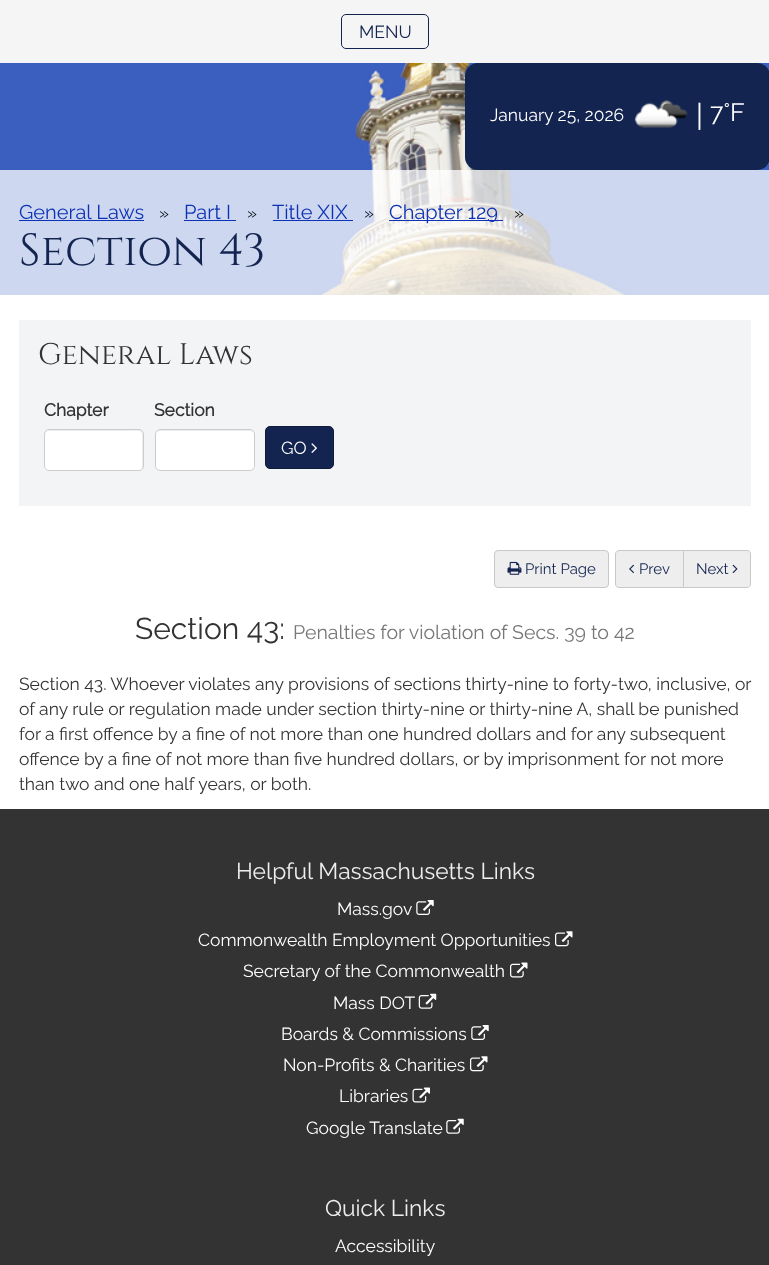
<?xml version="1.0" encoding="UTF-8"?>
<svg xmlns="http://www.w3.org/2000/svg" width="769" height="1265">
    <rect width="100%" height="100%" fill="#333333"/>
    <image x="0" y="63" width="769" height="232" href="img_01.png"/>
    <rect x="0" y="0" width="769" height="63" fill="#F5F5F5"/>
    <rect x="341.5" y="14.5" width="87" height="34" rx="4.5" fill="none" stroke="#132450"/>
    <text x="359" y="38" font-family="Raleway" font-size="17.5" font-weight="100" fill="#132450">MENU</text>
    <rect x="465" y="63" width="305" height="107" rx="13" fill="#132450"/>
    <text x="490" y="121" font-family="Raleway" font-size="17.5" font-weight="100" fill="#FFFFFF">January 25, 2026</text>
    <image x="634" y="100" width="54" height="28" href="img_02.png"/>
    <text x="696" y="126" font-family="Raleway" font-size="30" font-weight="100" fill="#FFFFFF">|</text>
    <text x="710" y="121" font-family="Raleway" font-size="25" font-weight="100" fill="#FFFFFF">7°F</text>
    <rect x="0" y="170" width="769" height="125" fill="#FFFFFF" fill-opacity="0.75"/>
    <text x="19" y="219" font-family="Raleway" font-size="20" font-weight="100" fill="#0D32B6">General Laws</text>
    <rect x="19" y="220" width="125" height="1" fill="#0D32B6"/>
    <text x="159" y="219" font-family="Raleway" font-size="17.5" font-weight="100" fill="#040812">»</text>
    <text x="184" y="219" font-family="Raleway" font-size="20" font-weight="100" fill="#0D32B6">Part I</text>
    <rect x="184" y="220" width="52" height="1" fill="#0D32B6"/>
    <text x="247" y="219" font-family="Raleway" font-size="17.5" font-weight="100" fill="#040812">»</text>
    <text x="272" y="219" font-family="Raleway" font-size="20" font-weight="100" fill="#0D32B6">Title XIX</text>
    <rect x="273" y="220" width="80" height="1" fill="#0D32B6"/>
    <text x="364" y="219" font-family="Raleway" font-size="17.5" font-weight="100" fill="#040812">»</text>
    <rect x="389" y="220" width="114" height="1" fill="#0D32B6"/>
    <text x="389" y="219" font-family="Raleway" font-size="20" font-weight="100" fill="#0D32B6">Chapter 129</text>
    <text x="514" y="219" font-family="Raleway" font-size="17.5" font-weight="100" fill="#040812">»</text>
    <text x="19" y="265" font-family="Cinzel" font-size="45" fill="#132450">Section 43</text>
    <rect x="0" y="295" width="769" height="514" fill="#FFFFFF"/>
    <rect x="19" y="320" width="732" height="186" fill="#F3F4F6"/>
    <text x="38" y="364" font-family="Cinzel" font-size="29.75" fill="#333333">General Laws</text>
    <text x="44" y="416" font-family="Raleway" font-size="17.5" font-weight="700" fill="#333333">Chapter</text>
    <rect x="44" y="429" width="100" height="42" rx="5" fill="#FFFFFF"/>
    <path d="M 49 431 H 124 C 145 431 142 428 142 446 V 469 C 143 468 143 467 143 466 V 434 C 143 432 141 430 139 430 H 49 C 47 430 45 432 45 434 V 435 C 45 433 47 431 49 431 Z" fill="#ECECEC"/>
    <rect x="44.5" y="429.5" width="99" height="41" rx="4.5" fill="none" stroke="#CCCCCC"/>
    <text x="154" y="416" font-family="Raleway" font-size="17.5" font-weight="700" fill="#333333">Section</text>
    <rect x="155" y="429" width="100" height="42" rx="5" fill="#FFFFFF"/>
    <path d="M 160 431 H 250 C 252 431 254 433 254 435 C 254 426 239 430 235 430 H 175 C 171 430 156 426 156 435 C 156 433 158 431 160 431 Z" fill="#ECECEC"/>
    <rect x="155.5" y="429.5" width="99" height="41" rx="4.5" fill="none" stroke="#CCCCCC"/>
    <rect x="265.5" y="426.5" width="68" height="42" rx="4.5" fill="#132450" stroke="#0E1B3B"/>
    <text x="281" y="454" font-family="Raleway" font-size="17.5" font-weight="100" fill="#FFFFFF">GO</text>
    <image x="311" y="443" width="6" height="10" href="img_03.png"/>
    <rect x="494.5" y="550.5" width="114" height="37" rx="3.5" fill="#EEEEEE" stroke="#C8C8C8"/>
    <image x="507" y="561" width="15" height="14" href="img_04.png"/>
    <text x="525" y="574" font-family="Raleway" font-size="15" font-weight="100" fill="#132450">Print Page</text>
    <path d="M 619 550.5 H 683.5 V 587.5 H 619 C 617 587.5 615.5 586 615.5 584 V 554 C 615.5 552 617 550.5 619 550.5 Z" fill="#EEEEEE" stroke="#C8C8C8"/>
    <image x="629" y="564" width="5" height="10" href="img_05.png"/>
    <text x="639" y="574" font-family="Raleway" font-size="15" font-weight="100" fill="#132450">Prev</text>
    <path d="M 683.5 550.5 H 747 C 749 550.5 750.5 552 750.5 554 V 584 C 750.5 586 749 587.5 747 587.5 H 683.5 Z" fill="#EEEEEE" stroke="#C8C8C8"/>
    <text x="696" y="574" font-family="Raleway" font-size="15" font-weight="100" fill="#132450">Next</text>
    <image x="732" y="564" width="6" height="10" href="img_06.png"/>
    <text x="135" y="639" font-family="Raleway" font-size="30" font-weight="100" fill="#333333">Section 43:</text>
    <text x="293" y="639" font-family="Raleway" font-size="19.5" font-weight="100" fill="#777777">Penalties for violation of Secs. 39 to 42</text>
    <text font-family="Raleway" font-size="17.5" font-weight="100" fill="#333333">
        <tspan x="19" y="690">Section 43. Whoever violates any provisions of sections thirty-nine to forty-two, inclusive, or</tspan>
        <tspan x="19" y="715">of any rule or regulation made under section thirty-nine or thirty-nine A, shall be punished</tspan>
        <tspan x="19" y="740">for a first offence by a fine of not more than one hundred dollars and for any subsequent</tspan>
        <tspan x="19" y="765">offence by a fine of not more than five hundred dollars, or by imprisonment for not more</tspan>
        <tspan x="19" y="790">than two and one half years, or both.</tspan>
    </text>
    <text x="236" y="879" font-family="Raleway" font-size="22.75" font-weight="100" fill="#EEEEEE">Helpful Massachusetts Links</text>
    <text x="337" y="915" font-family="Raleway" font-size="17.5" font-weight="100" fill="#FFFFFF">Mass.gov</text>
    <image x="416" y="900" width="18" height="15" href="img_07.png"/>
    <text x="198" y="946" font-family="Raleway" font-size="17.5" font-weight="100" fill="#FFFFFF">Commonwealth Employment Opportunities</text>
    <image x="555" y="931" width="18" height="16" href="img_08.png"/>
    <text x="243" y="977" font-family="Raleway" font-size="17.5" font-weight="100" fill="#FFFFFF">Secretary of the Commonwealth</text>
    <image x="510" y="962" width="18" height="16" href="img_09.png"/>
    <text x="333" y="1009" font-family="Raleway" font-size="17.5" font-weight="100" fill="#FFFFFF">Mass DOT</text>
    <image x="418" y="993" width="19" height="16" href="img_10.png"/>
    <text x="281" y="1040" font-family="Raleway" font-size="17.5" font-weight="100" fill="#FFFFFF">Boards &amp; Commissions</text>
    <image x="471" y="1025" width="18" height="15" href="img_07.png"/>
    <text x="283" y="1071" font-family="Raleway" font-size="17.5" font-weight="100" fill="#FFFFFF">Non-Profits &amp; Charities</text>
    <image x="470" y="1056" width="18" height="16" href="img_08.png"/>
    <text x="339" y="1102" font-family="Raleway" font-size="17.5" font-weight="100" fill="#FFFFFF">Libraries</text>
    <image x="412" y="1087" width="18" height="16" href="img_11.png"/>
    <text x="306" y="1134" font-family="Raleway" font-size="17.5" font-weight="100" fill="#FFFFFF">Google Translate</text>
    <image x="446" y="1118" width="18" height="16" href="img_12.png"/>
    <text x="325" y="1216" font-family="Raleway" font-size="22.75" font-weight="100" fill="#EEEEEE">Quick Links</text>
    <text x="335" y="1252" font-family="Raleway" font-size="17.5" font-weight="100" fill="#FFFFFF">Accessibility</text>
</svg>
